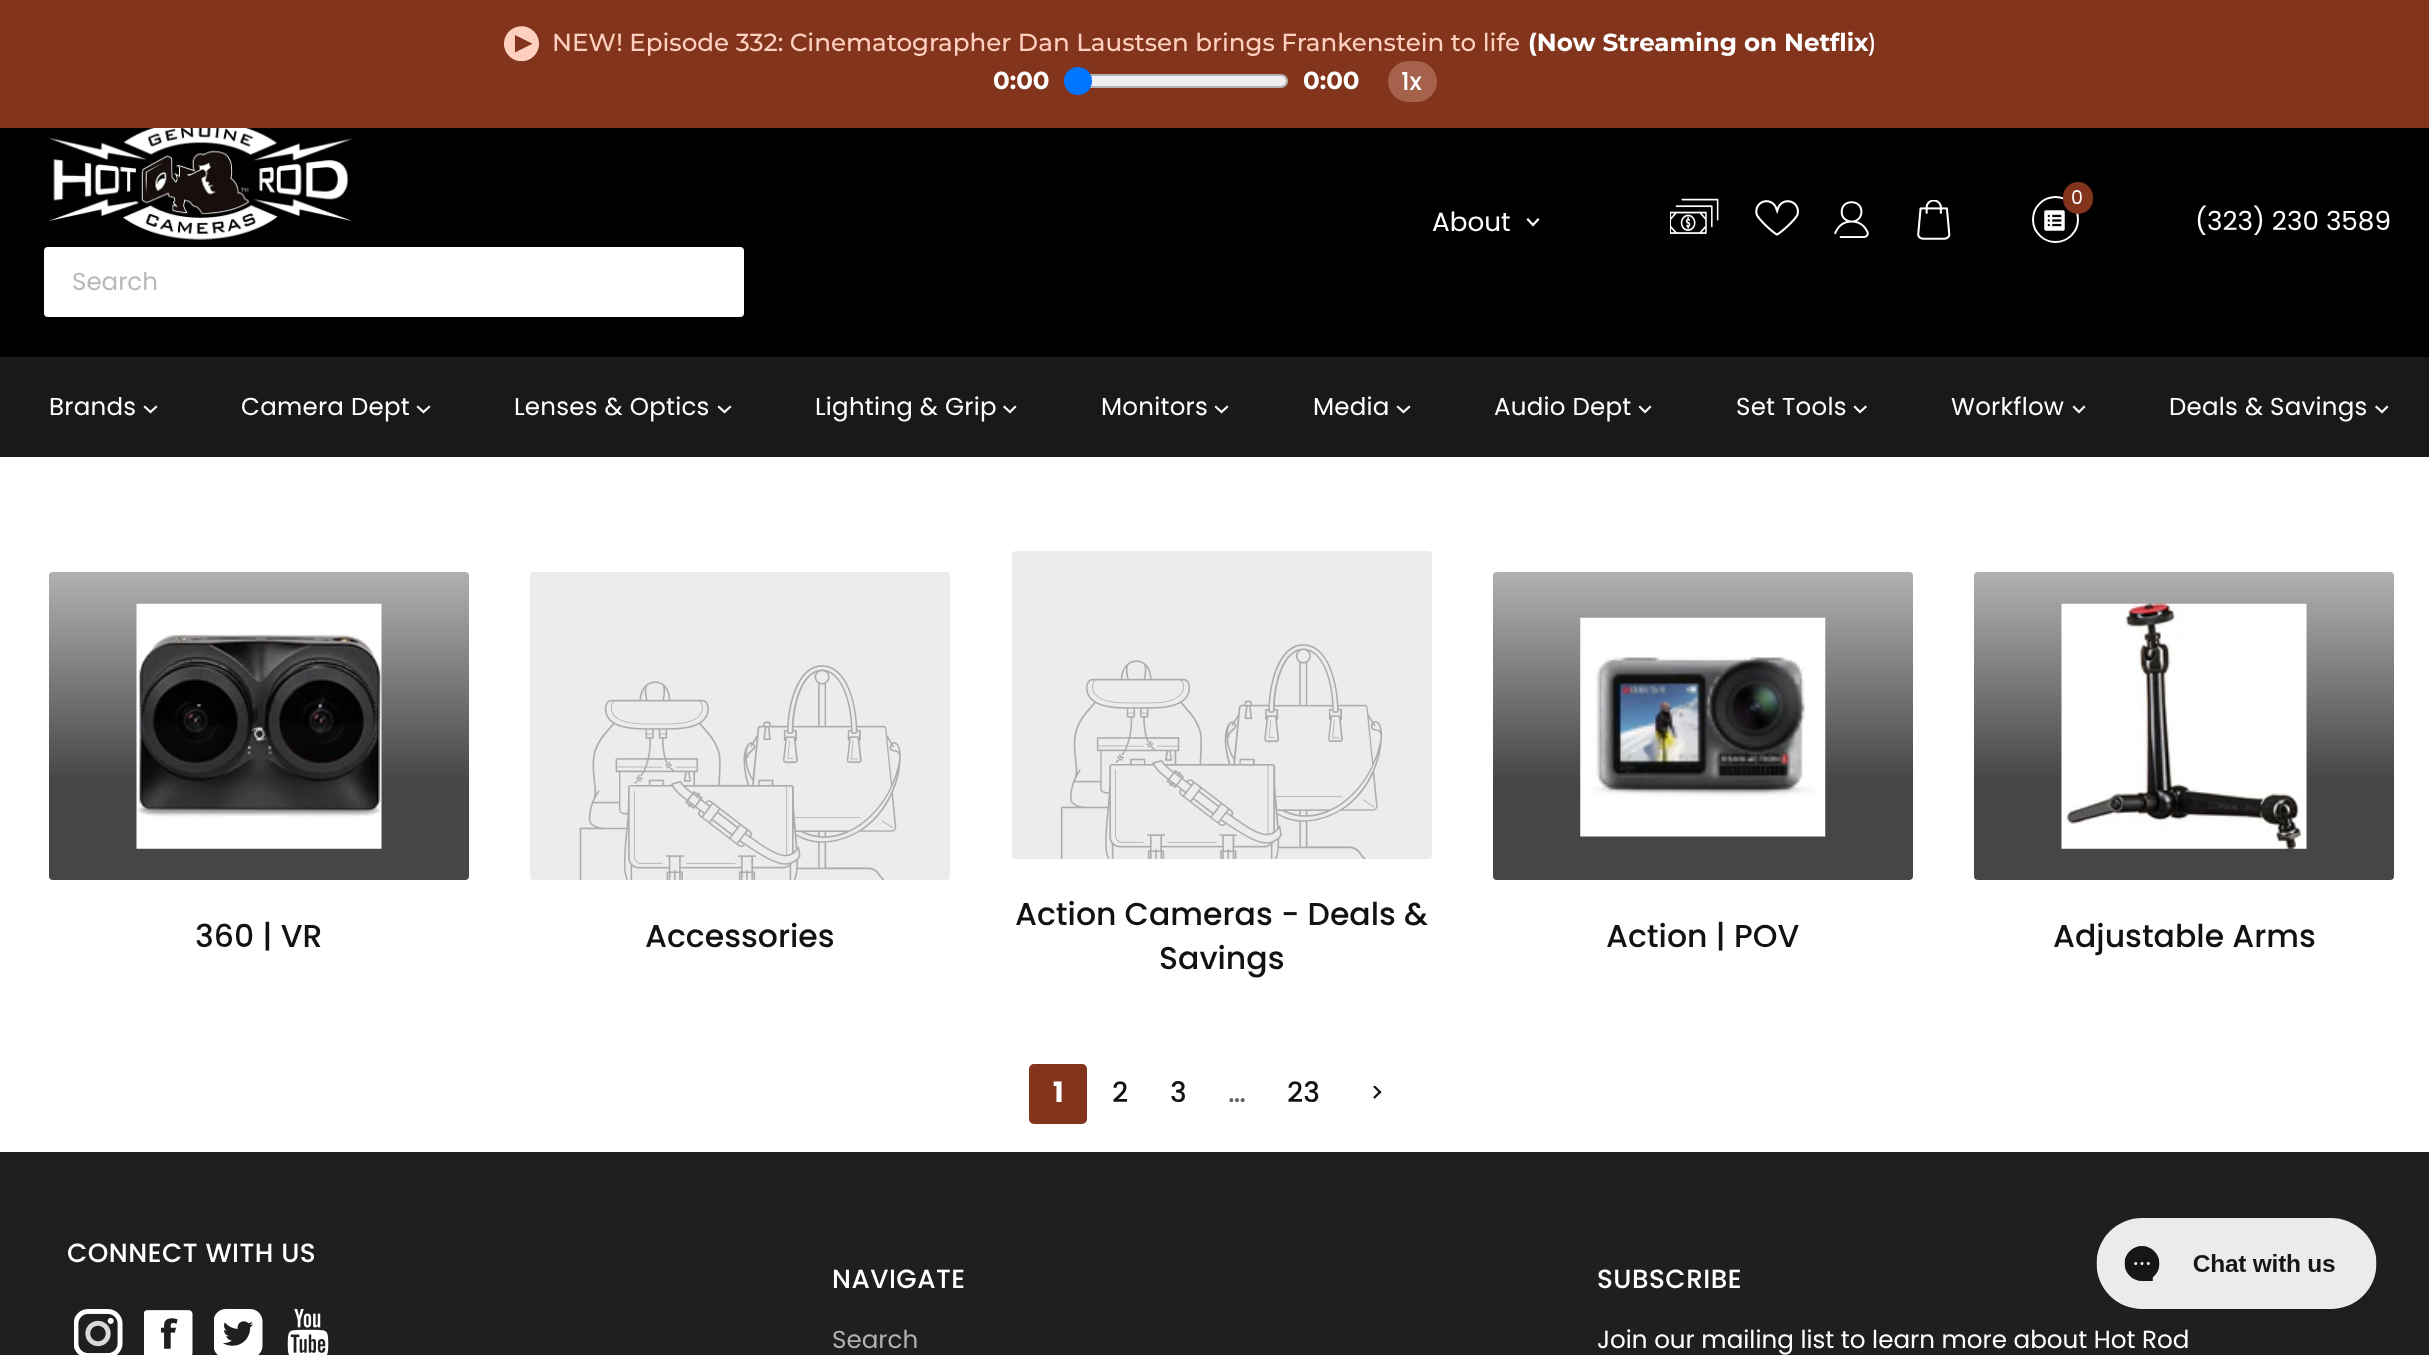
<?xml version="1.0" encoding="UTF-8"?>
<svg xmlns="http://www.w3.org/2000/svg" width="2429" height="1355">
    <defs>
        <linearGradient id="g1" gradientUnits="userSpaceOnUse" x1="259" y1="572" x2="259" y2="880"><stop offset="0" stop-color="#B1B1B1"/><stop offset="0.68" stop-color="#464646"/></linearGradient>
        <linearGradient id="g2" gradientUnits="userSpaceOnUse" x1="1703" y1="572" x2="1703" y2="880"><stop offset="0" stop-color="#B1B1B1"/><stop offset="0.68" stop-color="#464646"/></linearGradient>
        <linearGradient id="g3" gradientUnits="userSpaceOnUse" x1="2184" y1="572" x2="2184" y2="880"><stop offset="0" stop-color="#B1B1B1"/><stop offset="0.68" stop-color="#464646"/></linearGradient>
    </defs>
    <rect width="100%" height="100%" fill="#FFFFFF"/>
    <rect x="0" y="0" width="2429" height="128" fill="#82341C"/>
    <image x="504" y="26" width="35" height="35" href="img_01.png"/>
    <text x="552" y="51" word-spacing="-0.1" font-family="Montserrat" font-size="24.6" font-weight="500" fill="#FFCFBF">NEW! Episode 332: Cinematographer Dan Laustsen brings Frankenstein to life</text>
    <text x="1528" y="51" font-family="Montserrat" font-size="24.6" font-weight="700" fill="#FFFFFF">(Now Streaming on Netflix</text>
    <text x="1868" y="51" font-family="Montserrat" font-size="24.6" font-weight="500" fill="#FFFFFF">)</text>
    <text x="993" y="89" font-family="Montserrat" font-size="24.6" font-weight="700" fill="#FFFFFF">0:00</text>
    <rect x="1067" y="75" width="220" height="12" rx="6" fill="#EFEFEF" stroke="#B2B2B2" stroke-width="2"/>
    <circle cx="1078" cy="81" r="14" fill="#0075FF"/>
    <text x="1303" y="89" font-family="Montserrat" font-size="24.6" font-weight="700" fill="#FFFFFF">0:00</text>
    <rect x="1388" y="61" width="49" height="41" rx="20.5" fill="#A5614B"/>
    <text x="1401" y="90" font-family="Poppins" font-size="24.6" font-weight="500" fill="#FFFFFF">1x</text>
    <rect x="0" y="128" width="2429" height="229" fill="#000000"/>
    <circle cx="2055.5" cy="219.5" r="22.5" fill="none" stroke="#FFFFFF" stroke-width="2"/>
    <image x="2044" y="210" width="21" height="21" href="img_02.png"/>
    <rect x="2063" y="182" width="30" height="32" rx="15" fill="#82341C"/>
    <text x="2071" y="204" font-family="Poppins" font-size="19" fill="#FFFFFF">0</text>
    <image x="1917" y="200" width="34" height="40" href="img_03.png"/>
    <text x="1432" y="231" font-family="Poppins" font-size="26.25" fill="#FFFFFF">About</text>
    <path d="M 1533 225 L 1538 219.5 M 1533 225 L 1528 219.5" fill="none" stroke="#FFFFFF" stroke-width="2.2" stroke-linecap="square"/>
    <image x="1670" y="198" width="49" height="36" href="img_04.png"/>
    <image x="1755" y="200" width="44" height="36" href="img_05.png"/>
    <image x="1834" y="201" width="35" height="37" href="img_06.png"/>
    <text x="2195" y="230" font-family="Poppins" font-size="26.25" fill="#FFFFFF">(323) 230 3589</text>
    <image x="48" y="128" width="305" height="112" href="img_07.png"/>
    <rect x="44" y="247" width="700" height="70" rx="4" fill="#FFFFFF"/>
    <text x="72" y="290" font-family="Poppins" font-size="24.5" fill="#B8B8B8">Search</text>
    <rect x="0" y="357" width="2429" height="100" fill="#191919"/>
    <text x="49" y="415" font-family="Poppins" font-size="24.5" letter-spacing="0.25" fill="#FFFFFF">Brands</text>
    <path d="M 150.5 412 L 156 407 M 150.5 412 L 145 407" fill="none" stroke="#FFFFFF" stroke-width="2.2" stroke-linecap="square"/>
    <text x="241" y="415" font-family="Poppins" font-size="24.5" letter-spacing="0.25" fill="#FFFFFF">Camera Dept</text>
    <path d="M 423.5 412 L 429 407 M 423.5 412 L 418 407" fill="none" stroke="#FFFFFF" stroke-width="2.2" stroke-linecap="square"/>
    <text x="514" y="415" font-family="Poppins" font-size="24.5" letter-spacing="0.25" fill="#FFFFFF">Lenses &amp; Optics</text>
    <path d="M 724.5 412 L 730 407 M 724.5 412 L 719 407" fill="none" stroke="#FFFFFF" stroke-width="2.2" stroke-linecap="square"/>
    <text x="815" y="415" font-family="Poppins" font-size="24.5" letter-spacing="0.25" fill="#FFFFFF">Lighting &amp; Grip</text>
    <path d="M 1010 412 L 1015 407 M 1010 412 L 1004.5 407" fill="none" stroke="#FFFFFF" stroke-width="2.2" stroke-linecap="square"/>
    <text x="1101" y="415" font-family="Poppins" font-size="24.5" letter-spacing="0.25" fill="#FFFFFF">Monitors</text>
    <path d="M 1221.5 412 L 1227 407 M 1221.5 412 L 1216 407" fill="none" stroke="#FFFFFF" stroke-width="2.2" stroke-linecap="square"/>
    <text x="1313" y="415" font-family="Poppins" font-size="24.5" letter-spacing="0.25" fill="#FFFFFF">Media</text>
    <path d="M 1403.5 412 L 1409 407 M 1403.5 412 L 1398 407" fill="none" stroke="#FFFFFF" stroke-width="2.2" stroke-linecap="square"/>
    <text x="1494" y="415" font-family="Poppins" font-size="24.5" letter-spacing="0.25" fill="#FFFFFF">Audio Dept</text>
    <path d="M 1645 412 L 1650 407 M 1645 412 L 1640 407" fill="none" stroke="#FFFFFF" stroke-width="2.2" stroke-linecap="square"/>
    <text x="1736" y="415" font-family="Poppins" font-size="24.5" letter-spacing="0.25" fill="#FFFFFF">Set Tools</text>
    <path d="M 1860 412 L 1865.5 407 M 1860 412 L 1855 407" fill="none" stroke="#FFFFFF" stroke-width="2.2" stroke-linecap="square"/>
    <text x="1951" y="415" font-family="Poppins" font-size="24.5" letter-spacing="0.25" fill="#FFFFFF">Workflow</text>
    <path d="M 2079 412 L 2084 407 M 2079 412 L 2074 407" fill="none" stroke="#FFFFFF" stroke-width="2.2" stroke-linecap="square"/>
    <text x="2169" y="415" font-family="Poppins" font-size="24.5" letter-spacing="0.25" fill="#FFFFFF">Deals &amp; Savings</text>
    <path d="M 2382 412 L 2387 407 M 2382 412 L 2376.5 407" fill="none" stroke="#FFFFFF" stroke-width="2.2" stroke-linecap="square"/>
    <rect x="49" y="572" width="420" height="308" rx="4" fill="url(#g1)"/>
    <image x="136" y="603" width="246" height="246" href="img_08.png"/>
    <text x="195" y="947" font-family="Poppins" font-size="31.5" font-weight="500" fill="#121212">360 | VR</text>
    <rect x="530" y="572" width="420" height="308" rx="4" fill="#ECECEC"/>
    <image x="579" y="665" width="322" height="215" href="img_09.png"/>
    <text x="645" y="947" font-family="Poppins" font-size="31.5" font-weight="500" fill="#121212">Accessories</text>
    <rect x="1012" y="551" width="420" height="308" rx="4" fill="#ECECEC"/>
    <image x="1060" y="644" width="323" height="215" href="img_10.png"/>
    <text x="1015" y="925" font-family="Poppins" font-size="31.5" font-weight="500" fill="#121212">Action Cameras - Deals &amp;</text>
    <text x="1159" y="969" font-family="Poppins" font-size="31.5" font-weight="500" fill="#121212">Savings</text>
    <rect x="1493" y="572" width="420" height="308" rx="4" fill="url(#g2)"/>
    <image x="1580" y="617" width="246" height="220" href="img_11.png"/>
    <text x="1606" y="947" font-family="Poppins" font-size="31.5" font-weight="500" fill="#121212">Action | POV</text>
    <rect x="1974" y="572" width="420" height="308" rx="4" fill="url(#g3)"/>
    <image x="2061" y="603" width="246" height="246" href="img_12.png"/>
    <text x="2053" y="947" font-family="Poppins" font-size="31.5" font-weight="500" fill="#121212">Adjustable Arms</text>
    <rect x="1029" y="1064" width="58" height="60" rx="5" fill="#82341C"/>
    <text x="1053" y="1102" font-family="Poppins" font-size="28" font-weight="700" fill="#FFFFFF">1</text>
    <text x="1112" y="1102" font-family="Poppins" font-size="28" font-weight="500" fill="#121212">2</text>
    <text x="1170" y="1102" font-family="Poppins" font-size="28" font-weight="500" fill="#121212">3</text>
    <text x="1287" y="1102" font-family="Poppins" font-size="28" font-weight="500" fill="#121212">23</text>
    <image x="1373" y="1085" width="9" height="14" href="img_13.png"/>
    <text x="1228" y="1102" font-family="Poppins" font-size="28" font-weight="500" fill="#636363">…</text>
    <rect x="0" y="1152" width="2429" height="203" fill="#1F1F1F"/>
    <text x="67" y="1262" font-family="Poppins" font-size="26.25" font-weight="500" letter-spacing="0.5" fill="#FFFFFF">CONNECT WITH US</text>
    <image x="74" y="1309" width="49" height="46" href="img_14.png"/>
    <image x="144" y="1310" width="49" height="45" href="img_15.png"/>
    <image x="214" y="1309" width="49" height="46" href="img_16.png"/>
    <image x="287" y="1309" width="42" height="46" href="img_17.png"/>
    <text x="832" y="1288" font-family="Poppins" font-size="26.25" font-weight="500" letter-spacing="0.5" fill="#FFFFFF">NAVIGATE</text>
    <text x="832" y="1348" font-family="Poppins" font-size="24.6" fill="#B1B1B1">Search</text>
    <text x="1597" y="1288" font-family="Poppins" font-size="26.25" font-weight="500" letter-spacing="0.5" fill="#FFFFFF">SUBSCRIBE</text>
    <text x="1597" y="1348" font-family="Poppins" font-size="24.6" fill="#FFFFFF">Join our mailing list to learn more about Hot Rod</text>
    <image x="2096" y="1218" width="281" height="91" href="img_18.png"/>
</svg>
